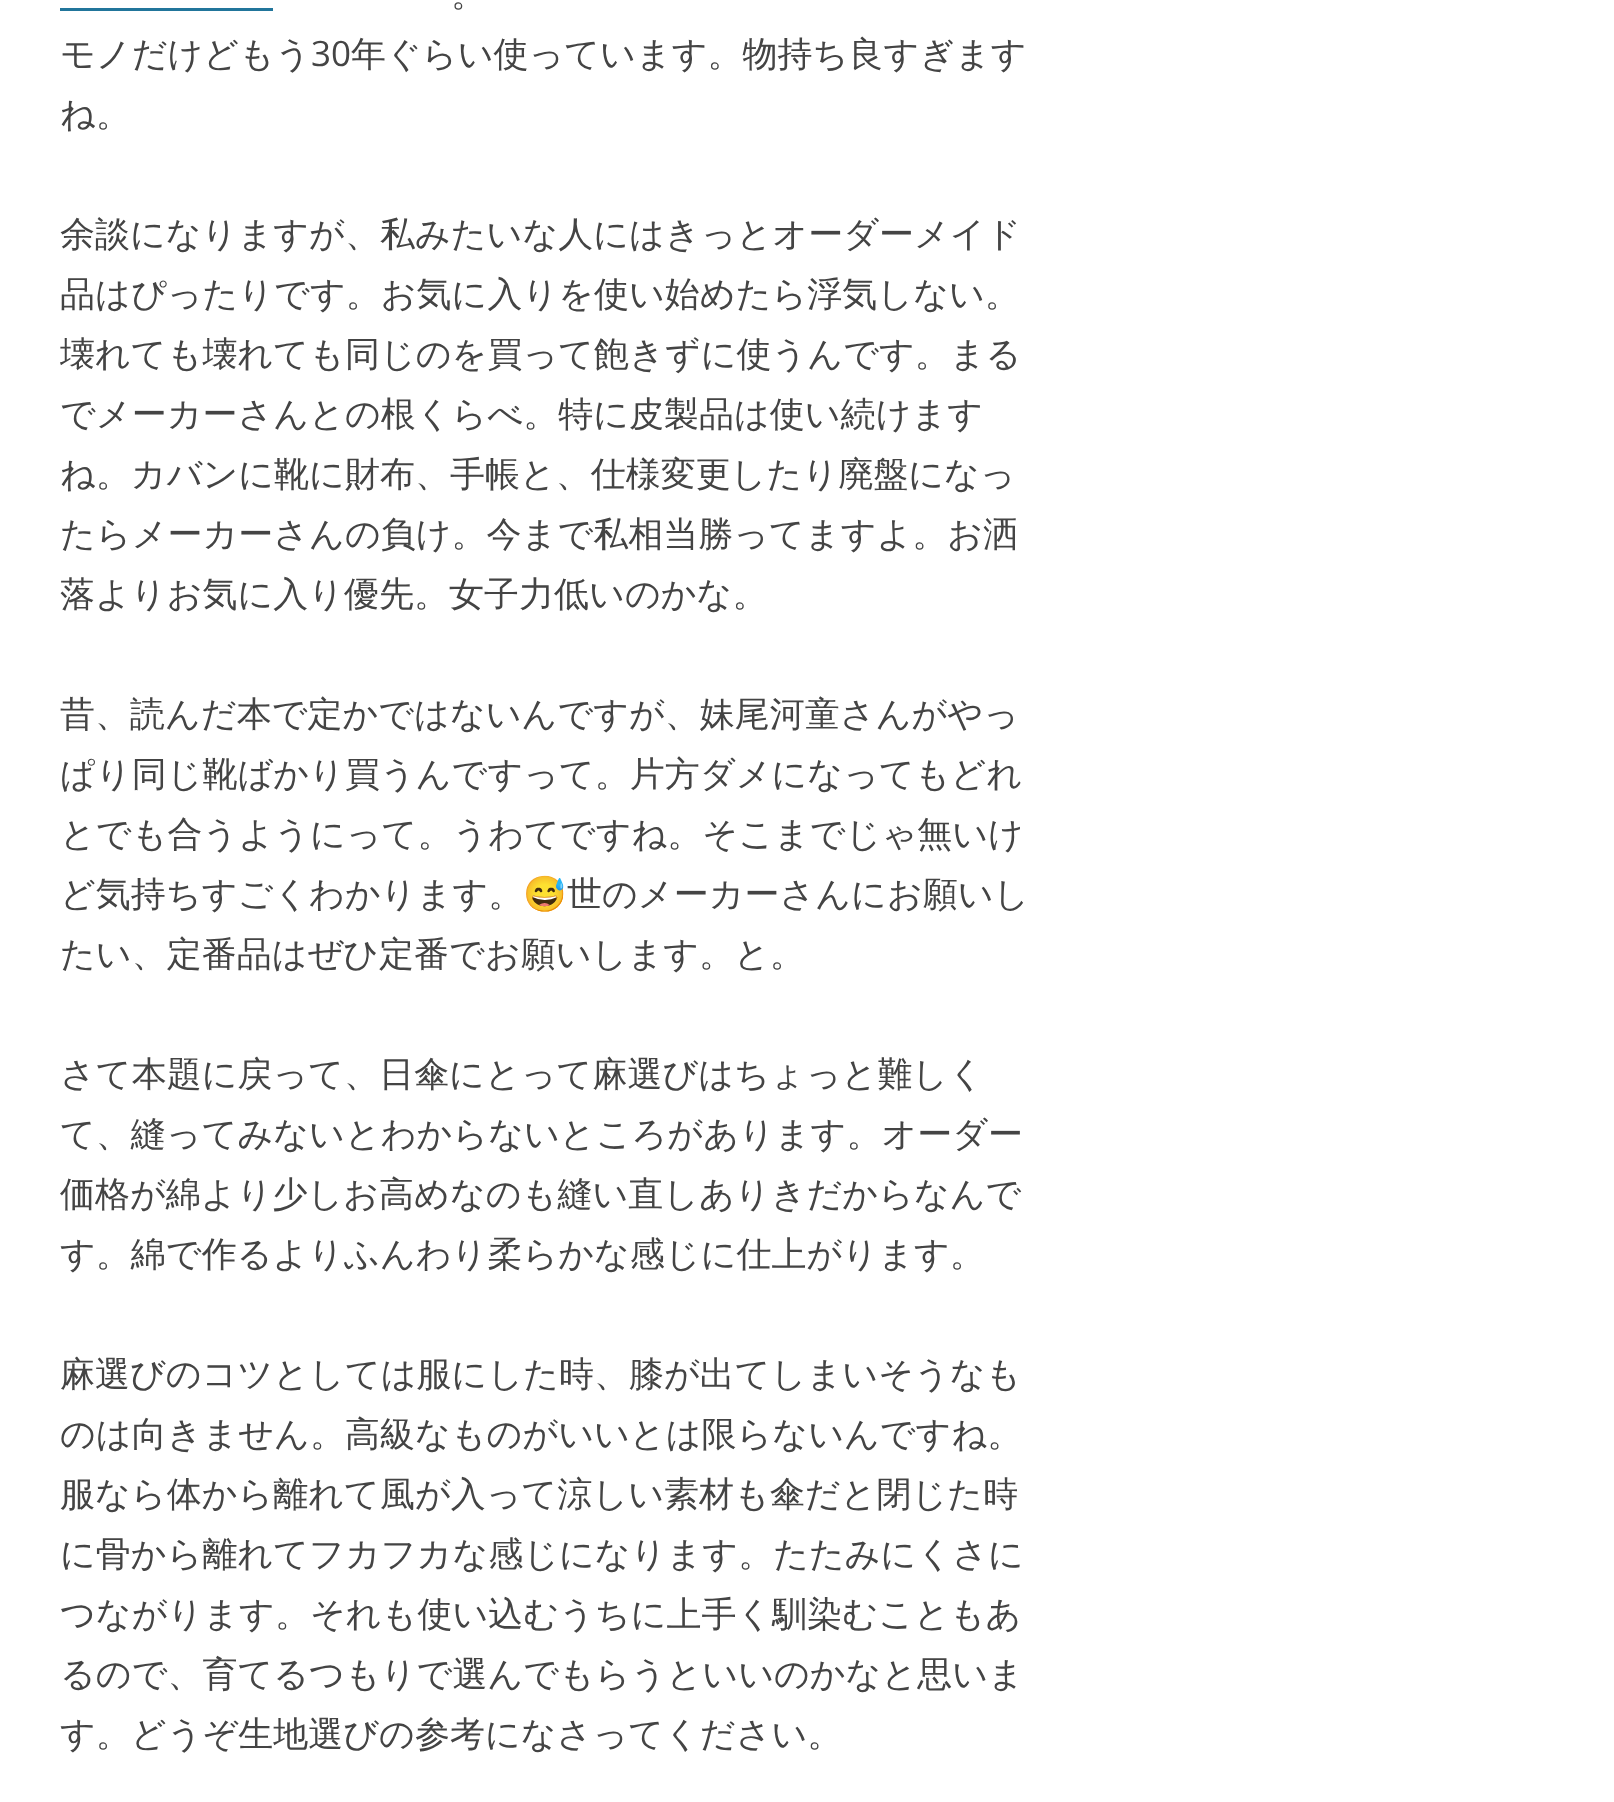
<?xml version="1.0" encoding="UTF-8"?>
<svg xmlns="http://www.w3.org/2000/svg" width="1614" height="1802">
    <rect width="100%" height="100%" fill="#FFFFFF"/>
    <rect x="60" y="8" width="213" height="3" fill="#21759B"/>
    <text x="451" y="6" font-family="WenQuanYi Zen Hei" font-size="35" font-weight="500" fill="#444444">。</text>
    <text x="60" y="66" font-family="WenQuanYi Zen Hei" font-size="35" font-weight="500" fill="#444444">モノだけどもう</text>
    <text x="311" y="66" font-family="Open Sans" font-size="35" fill="#444444">30</text>
    <text x="351" y="66" font-family="WenQuanYi Zen Hei" font-size="35" font-weight="500" fill="#444444">年ぐらい使っています。物持ち良すぎます</text>
    <text x="60" y="126" font-family="WenQuanYi Zen Hei" font-size="35" font-weight="500" fill="#444444">ね。</text>
    <text font-family="WenQuanYi Zen Hei" font-size="35" font-weight="500" fill="#444444">
        <tspan x="60" y="246">余談になりますが、私みたいな人にはきっとオーダーメイド</tspan>
        <tspan x="60" y="306">品はぴったりです。お気に入りを使い始めたら浮気しない。</tspan>
        <tspan x="60" y="366">壊れても壊れても同じのを買って飽きずに使うんです。まる</tspan>
        <tspan x="60" y="426">でメーカーさんとの根くらべ。特に皮製品は使い続けます</tspan>
        <tspan x="60" y="486">ね。カバンに靴に財布、手帳と、仕様変更したり廃盤になっ</tspan>
        <tspan x="60" y="546">たらメーカーさんの負け。今まで私相当勝ってますよ。お洒</tspan>
        <tspan x="60" y="606">落よりお気に入り優先。女子力低いのかな。</tspan>
    </text>
    <text font-family="WenQuanYi Zen Hei" font-size="35" font-weight="500" fill="#444444">
        <tspan x="60" y="726">昔、読んだ本で定かではないんですが、妹尾河童さんがやっ</tspan>
        <tspan x="60" y="786">ぱり同じ靴ばかり買うんですって。片方ダメになってもどれ</tspan>
        <tspan x="60" y="846">とでも合うようにって。うわてですね。そこまでじゃ無いけ</tspan>
        <tspan x="60" y="906">ど気持ちすごくわかります。</tspan>
    </text>
    <text x="523" y="906" font-family="Noto Color Emoji" font-size="35" fill="#444444">😅</text>
    <text x="567" y="906" font-family="WenQuanYi Zen Hei" font-size="35" font-weight="500" fill="#444444">世のメーカーさんにお願いし</text>
    <text x="60" y="966" font-family="WenQuanYi Zen Hei" font-size="35" font-weight="500" fill="#444444">たい、定番品はぜひ定番でお願いします。と。</text>
    <text font-family="WenQuanYi Zen Hei" font-size="35" font-weight="500" fill="#444444">
        <tspan x="60" y="1086">さて本題に戻って、日傘にとって麻選びはちょっと難しく</tspan>
        <tspan x="60" y="1146">て、縫ってみないとわからないところがあります。オーダー</tspan>
        <tspan x="60" y="1206">価格が綿より少しお高めなのも縫い直しありきだからなんで</tspan>
        <tspan x="60" y="1266">す。綿で作るよりふんわり柔らかな感じに仕上がります。</tspan>
    </text>
    <text font-family="WenQuanYi Zen Hei" font-size="35" font-weight="500" fill="#444444">
        <tspan x="60" y="1386">麻選びのコツとしては服にした時、膝が出てしまいそうなも</tspan>
        <tspan x="60" y="1446">のは向きません。高級なものがいいとは限らないんですね。</tspan>
        <tspan x="60" y="1506">服なら体から離れて風が入って涼しい素材も傘だと閉じた時</tspan>
        <tspan x="60" y="1566">に骨から離れてフカフカな感じになります。たたみにくさに</tspan>
        <tspan x="60" y="1626">つながります。それも使い込むうちに上手く馴染むこともあ</tspan>
        <tspan x="60" y="1686">るので、育てるつもりで選んでもらうといいのかなと思いま</tspan>
        <tspan x="60" y="1746">す。どうぞ生地選びの参考になさってください。</tspan>
    </text>
</svg>
